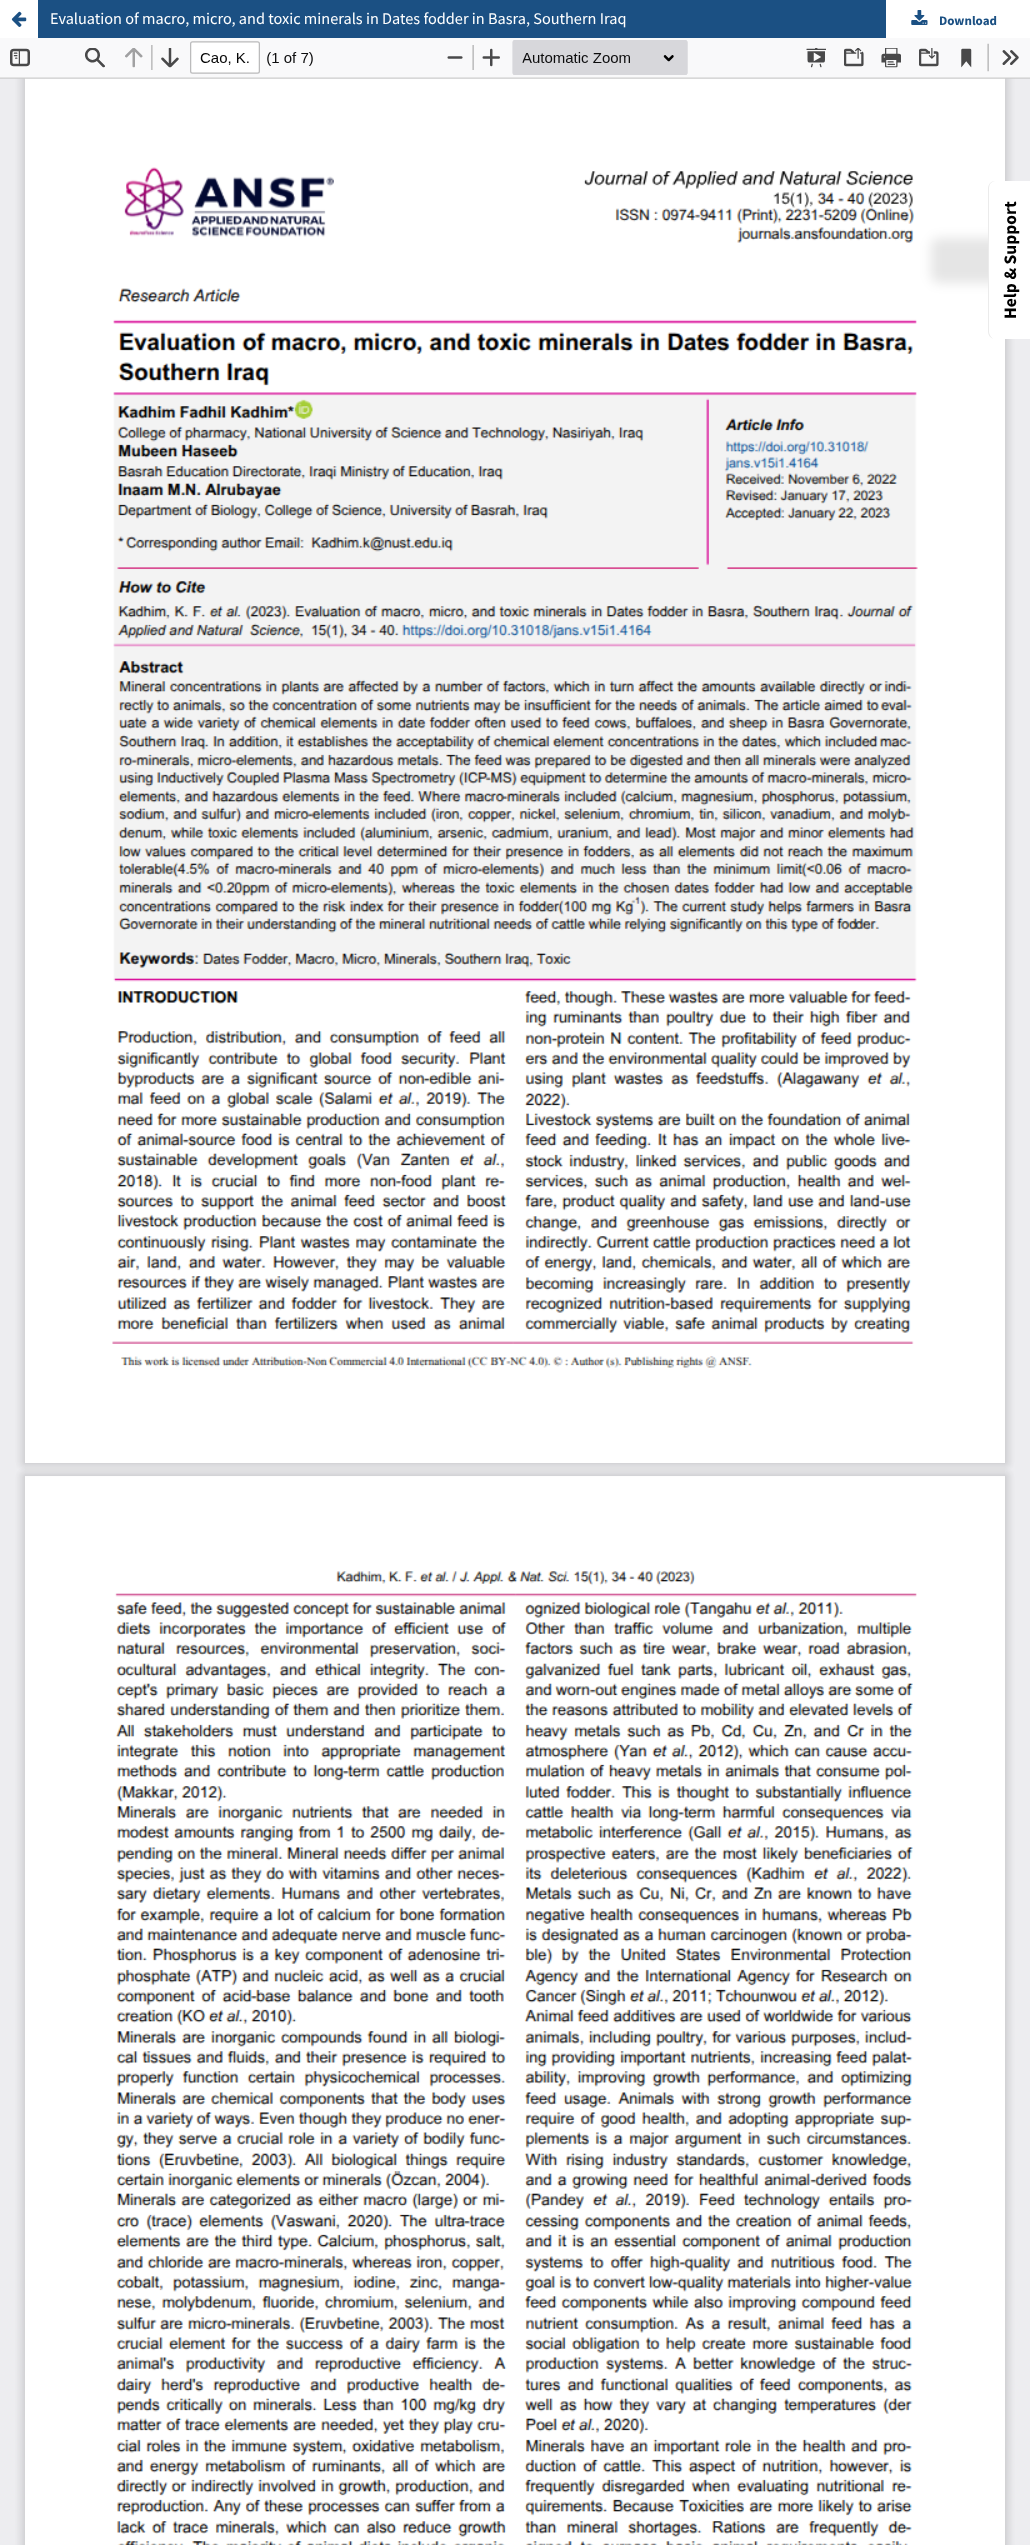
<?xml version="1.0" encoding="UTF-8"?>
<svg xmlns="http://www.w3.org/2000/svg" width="1030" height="2545">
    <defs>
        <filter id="blur1" x="-50%" y="-200%" width="200%" height="500%"><feGaussianBlur stdDeviation="6"/></filter>
    </defs>
    <rect width="100%" height="100%" fill="#FFFFFF"/>
    <rect x="38" y="0" width="848" height="38" fill="#1B5083"/>
    <image x="11" y="11" width="16" height="16" href="img_01.png"/>
    <text x="50" y="24" font-family="Source Sans Pro" font-size="16.25" fill="#FFFFFF">Evaluation of macro, micro, and toxic minerals in Dates fodder in Basra, Southern Iraq</text>
    <image x="911" y="10" width="17" height="15" href="img_02.png"/>
    <text x="939" y="25" font-family="Source Sans Pro" font-size="13" font-weight="700" fill="#1B5083">Download</text>
    <image x="0" y="38" width="1030" height="2507" href="img_03.png"/>
    <rect x="931" y="238" width="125" height="45" rx="8" fill="#000000" fill-opacity="0.1" filter="url(#blur1)"/>
    <path d="M 988 331 V 189 C 988 184 991 181 995 181 H 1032 V 339 H 995 C 991 339 988 335 988 331 Z" fill="#FFFFFF"/>
    <path d="M 989 331 C 989 334 991 338 994 339 C 990 338 988 335 988 331 V 189 C 988 184 991 181 995 181 C 991 182 989 184 989 189 Z" fill="#EBEBEB"/>
    <text x="1016" y="319" transform="rotate(-90 1016 319)" font-family="Source Sans Pro" font-size="17.5" font-weight="700" fill="#000000">Help &amp; Support</text>
</svg>
